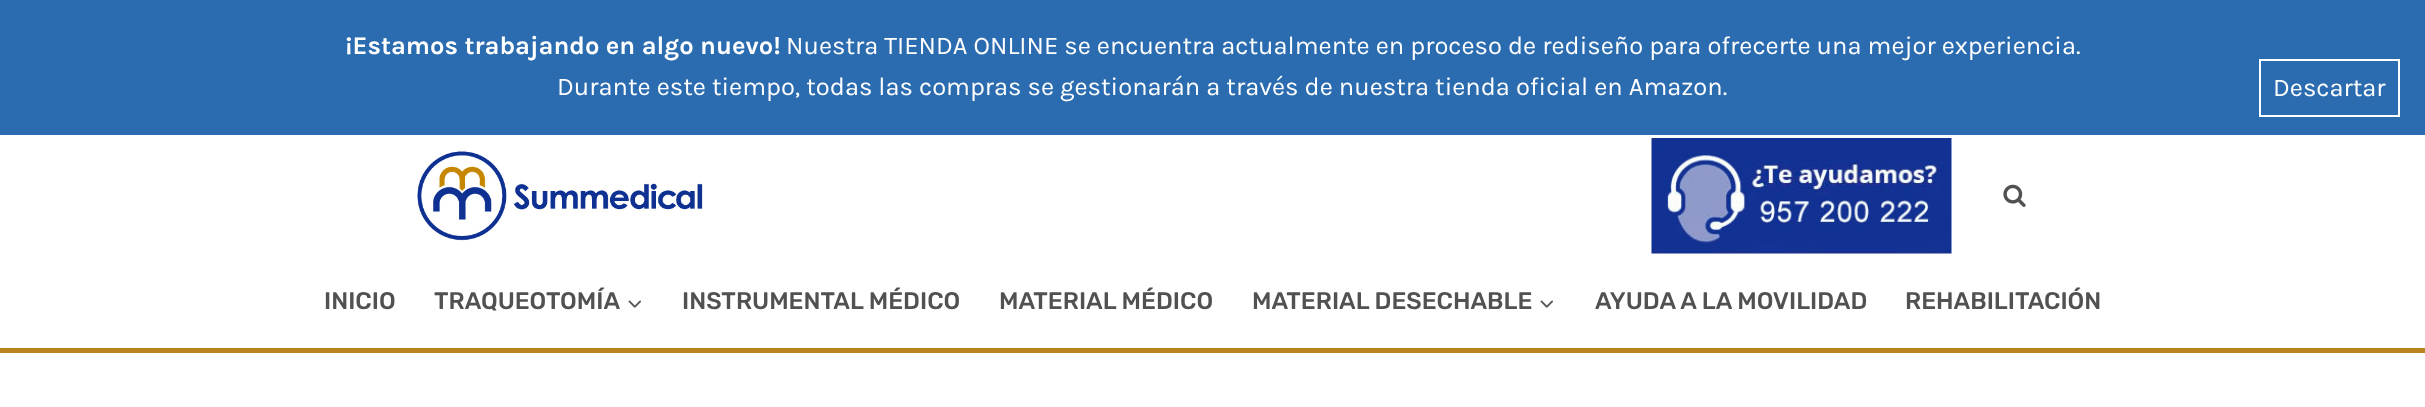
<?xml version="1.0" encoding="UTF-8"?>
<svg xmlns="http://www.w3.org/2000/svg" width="2425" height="407">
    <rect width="100%" height="100%" fill="#FFFFFF"/>
    <rect x="0" y="0" width="2425" height="135" fill="#2B6CB0"/>
    <text x="345" y="54" font-family="Karla" font-size="25.5" font-weight="700" fill="#FFFFFF">¡Estamos trabajando en algo nuevo!</text>
    <text x="786" y="54" font-family="Karla" font-size="25.5" fill="#FFFFFF">Nuestra TIENDA ONLINE se encuentra actualmente en proceso de rediseño para ofrecerte una mejor experiencia.</text>
    <text x="557" y="95" font-family="Karla" font-size="25.5" fill="#FFFFFF">Durante este tiempo, todas las compras se gestionarán a través de nuestra tienda oficial en Amazon.</text>
    <rect x="2260" y="60" width="139" height="56" fill="none" stroke="#FFFFFF" stroke-width="2"/>
    <text x="2273" y="96" font-family="Karla" font-size="25.5" fill="#FFFFFF">Descartar</text>
    <image x="417" y="151" width="286" height="90" href="img_01.png"/>
    <image x="1651" y="138" width="301" height="116" href="img_02.png"/>
    <image x="2003" y="184" width="23" height="23" href="img_03.png"/>
    <rect x="0" y="348" width="2425" height="5" fill="#B9841C"/>
    <text x="324" y="309" font-family="Rubik" font-size="24" font-weight="500" fill="#515151">INICIO</text>
    <text x="434" y="309" font-family="Rubik" font-size="24" font-weight="500" fill="#515151">TRAQUEOTOMÍA</text>
    <image x="628" y="300" width="13" height="8" href="img_04.png"/>
    <text x="682" y="309" font-family="Rubik" font-size="24" font-weight="500" fill="#515151">INSTRUMENTAL MÉDICO</text>
    <text x="999" y="309" font-family="Rubik" font-size="24" font-weight="500" fill="#515151">MATERIAL MÉDICO</text>
    <text x="1252" y="309" font-family="Rubik" font-size="24" font-weight="500" fill="#515151">MATERIAL DESECHABLE</text>
    <image x="1540" y="300" width="13" height="8" href="img_04.png"/>
    <text x="1595" y="309" font-family="Rubik" font-size="24" font-weight="500" fill="#515151">AYUDA A LA MOVILIDAD</text>
    <text x="1905" y="309" font-family="Rubik" font-size="24" font-weight="500" fill="#515151">REHABILITACIÓN</text>
</svg>
